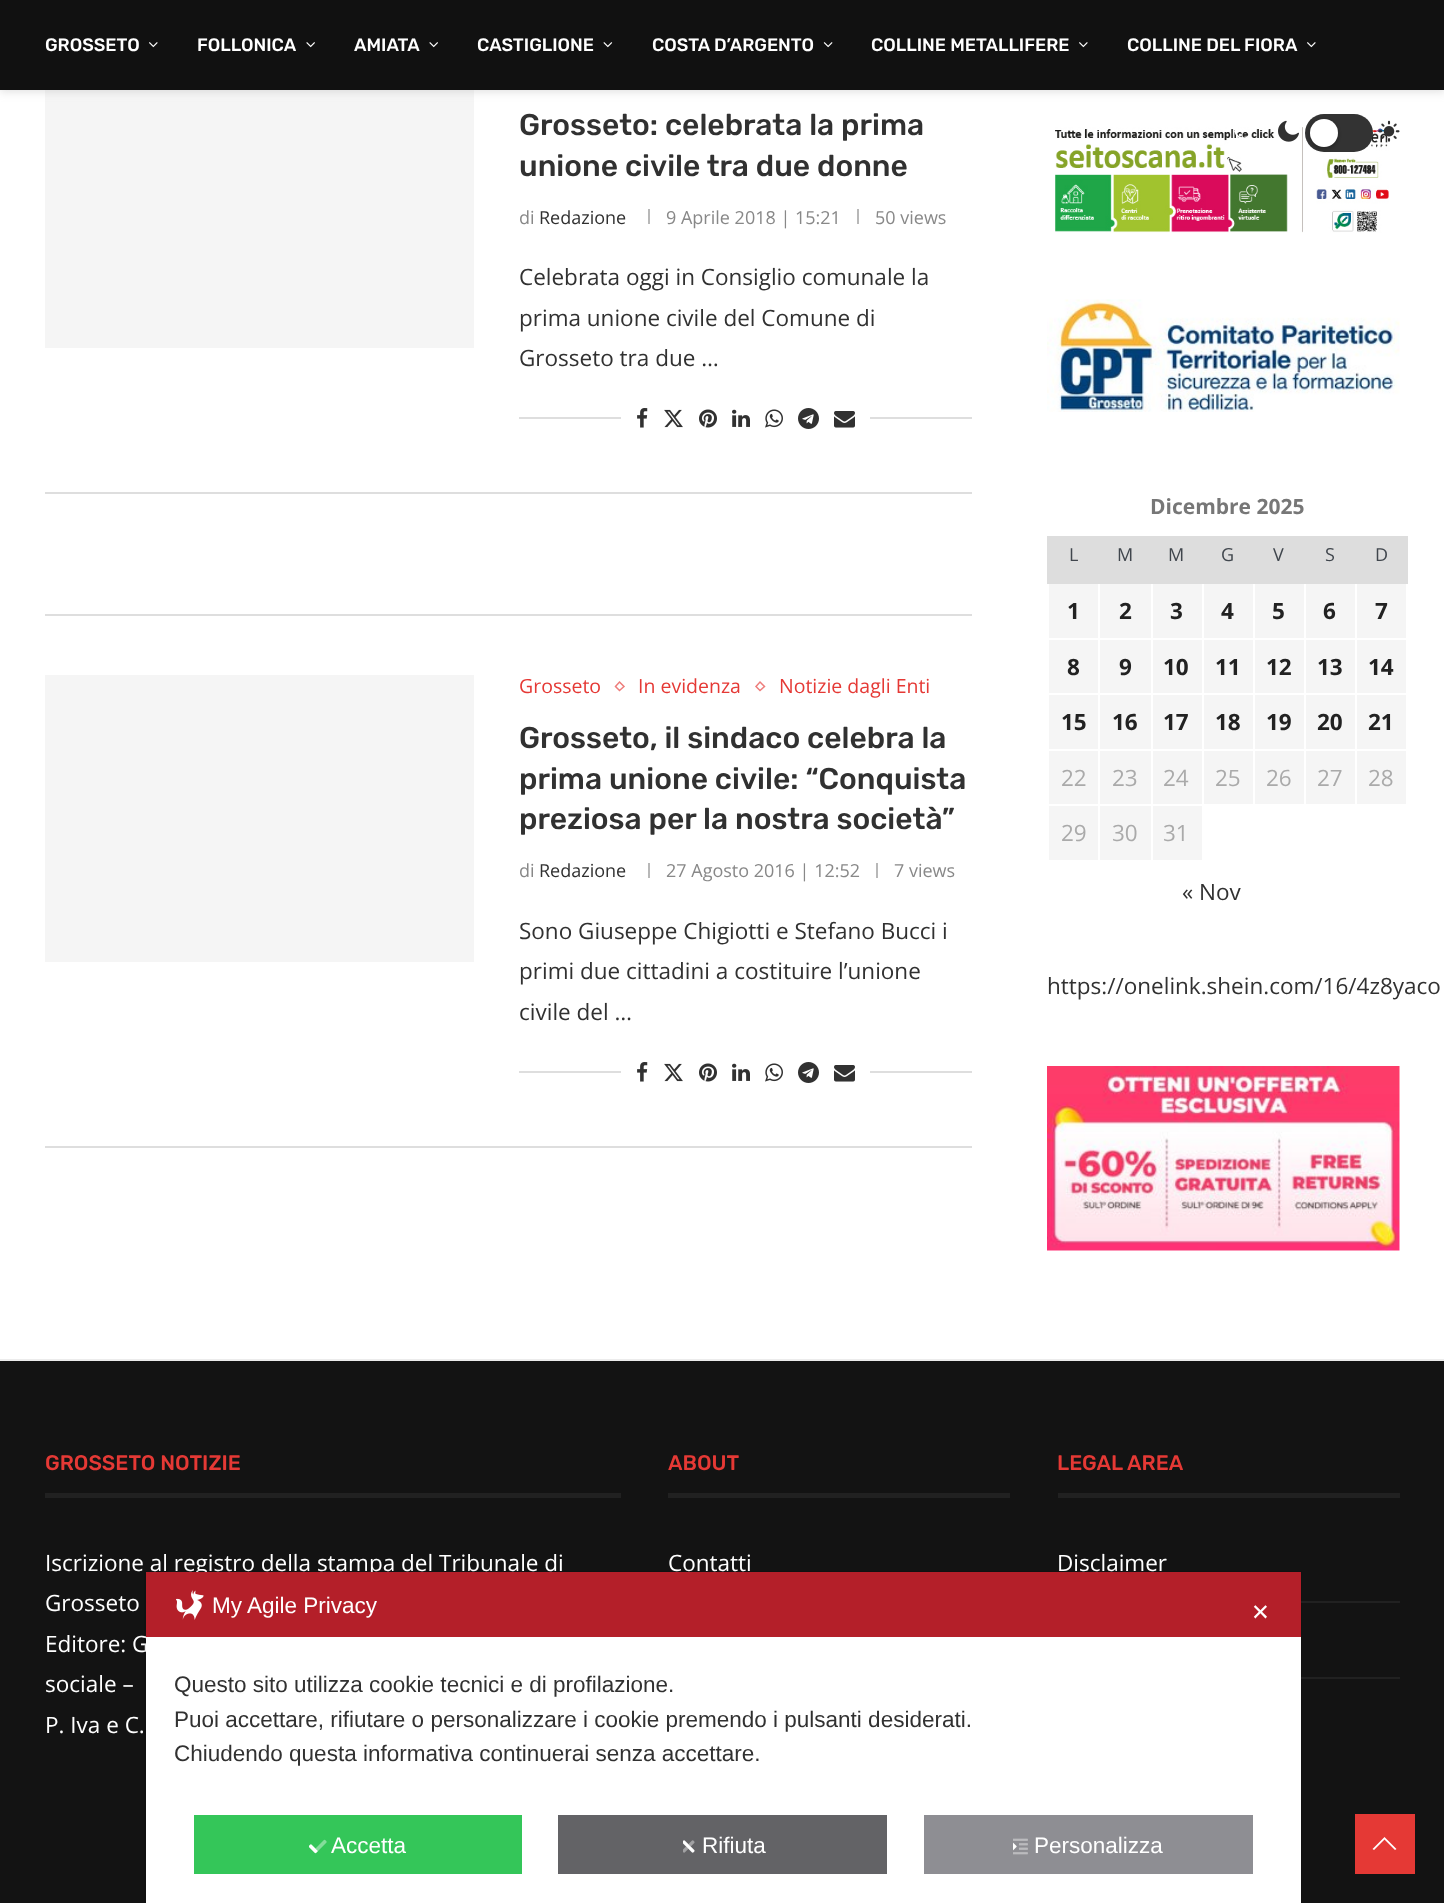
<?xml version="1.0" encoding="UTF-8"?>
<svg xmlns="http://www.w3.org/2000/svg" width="1444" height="1903">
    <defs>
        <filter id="blur1" x="-50%" y="-200%" width="200%" height="500%"><feGaussianBlur stdDeviation="4"/></filter>
        <filter id="blur2" x="-50%" y="-200%" width="200%" height="500%"><feGaussianBlur stdDeviation="2"/></filter>
    </defs>
    <rect width="100%" height="100%" fill="#FFFFFF"/>
    <rect x="45" y="90" width="429" height="258" fill="#F5F5F5"/>
    <rect x="0" y="2" width="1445" height="90" fill="#BEBEBE" fill-opacity="0.46" filter="url(#blur1)"/>
    <rect x="0" y="0" width="1444" height="90" fill="#111111"/>
    <text x="45" y="51" font-family="Rubik" font-size="18" font-weight="500" fill="#FFFFFF">GROSSETO</text>
    <image x="149" y="42" width="9" height="6" href="img_01.png"/>
    <text x="197" y="51" font-family="Rubik" font-size="18" font-weight="500" fill="#FFFFFF">FOLLONICA</text>
    <image x="306" y="42" width="9" height="6" href="img_02.png"/>
    <text x="354" y="51" font-family="Rubik" font-size="18" font-weight="500" fill="#FFFFFF">AMIATA</text>
    <image x="429" y="42" width="9" height="6" href="img_03.png"/>
    <text x="477" y="51" font-family="Rubik" font-size="18" font-weight="500" fill="#FFFFFF">CASTIGLIONE</text>
    <image x="603" y="42" width="10" height="6" href="img_04.png"/>
    <text x="652" y="51" font-family="Rubik" font-size="18" font-weight="500" fill="#FFFFFF">COSTA D’ARGENTO</text>
    <image x="823" y="42" width="10" height="6" href="img_05.png"/>
    <text x="871" y="51" font-family="Rubik" font-size="18" font-weight="500" fill="#FFFFFF">COLLINE METALLIFERE</text>
    <image x="1079" y="42" width="9" height="6" href="img_06.png"/>
    <text x="1127" y="51" font-family="Rubik" font-size="18" font-weight="500" fill="#FFFFFF">COLLINE DEL FIORA</text>
    <image x="1307" y="42" width="9" height="6" href="img_07.png"/>
    <image x="1055" y="127" width="334" height="106" href="img_18.png"/>
    <image x="1234" y="130" width="18" height="8" href="img_08.png"/>
    <image x="1278" y="120" width="21" height="22" href="img_09.png"/>
    <rect x="1305" y="114" width="68" height="38" rx="19" fill="#333333"/>
    <rect x="1310" y="120" width="28" height="29" rx="14" fill="#000000" fill-opacity="0.3" filter="url(#blur2)"/>
    <circle cx="1324" cy="133" r="14" fill="#FFFFFF"/>
    <image x="1378" y="120" width="22" height="22" href="img_10.png"/>
    <rect x="45" y="492" width="927" height="2" fill="#DEDEDE"/>
    <text font-family="Rubik" font-size="30" font-weight="500" fill="#313131">
        <tspan x="519" y="135">Grosseto: celebrata la prima</tspan>
        <tspan x="519" y="176">unione civile tra due donne</tspan>
    </text>
    <text x="519" y="224" font-family="Open Sans" font-size="18" fill="#888888">di</text>
    <text x="539" y="224" font-family="Open Sans" font-size="18" fill="#313131">Redazione</text>
    <rect x="648" y="209" width="2" height="15" fill="#B8B8B8"/>
    <text x="666" y="224" font-family="Open Sans" font-size="18" fill="#888888">9 Aprile 2018 | 15:21</text>
    <rect x="857" y="209" width="2" height="15" fill="#B8B8B8"/>
    <text x="875" y="224" font-family="Open Sans" font-size="18" fill="#888888">50 views</text>
    <text font-family="Open Sans" font-size="22.5" fill="#313131">
        <tspan x="519" y="285">Celebrata oggi in Consiglio comunale la</tspan>
        <tspan x="519" y="326">prima unione civile del Comune di</tspan>
        <tspan x="519" y="366">Grosseto tra due …</tspan>
    </text>
    <rect x="519" y="417" width="453" height="2" fill="#DEDEDE"/>
    <rect x="621" y="417" width="249" height="2" fill="#FFFFFF"/>
    <image x="637" y="408" width="11" height="20" href="img_11.png"/>
    <image x="664" y="409" width="19" height="19" href="img_12.png"/>
    <image x="699" y="409" width="18" height="19" href="img_13.png"/>
    <image x="732" y="409" width="18" height="18" href="img_14.png"/>
    <image x="765" y="409" width="18" height="19" href="img_15.png"/>
    <image x="798" y="408" width="21" height="21" href="img_16.png"/>
    <image x="834" y="411" width="21" height="17" href="img_17.png"/>
    <rect x="45" y="614" width="927" height="2" fill="#DEDEDE"/>
    <rect x="45" y="1146" width="927" height="2" fill="#DEDEDE"/>
    <rect x="45" y="675" width="429" height="287" fill="#F5F5F5"/>
    <text x="519" y="693" font-family="Open Sans" font-size="19.5" fill="#E53935">Grosseto</text>
    <path d="M 619.5 682 L 624 686.5 L 619.5 690.5 L 615.5 686.5 Z" fill="none" stroke="#EE7E7C" stroke-width="1.5"/>
    <text x="638" y="693" font-family="Open Sans" font-size="19.5" fill="#E53935">In evidenza</text>
    <path d="M 760 682 L 764.5 686.5 L 760 690.5 L 756 686.5 Z" fill="none" stroke="#EE7E7C" stroke-width="1.5"/>
    <text x="779" y="693" font-family="Open Sans" font-size="19.5" fill="#E53935">Notizie dagli Enti</text>
    <text font-family="Rubik" font-size="30" font-weight="500" fill="#313131">
        <tspan x="519" y="748">Grosseto, il sindaco celebra la</tspan>
        <tspan x="519" y="789">prima unione civile: “Conquista</tspan>
        <tspan x="519" y="829">preziosa per la nostra società”</tspan>
    </text>
    <text x="519" y="877" font-family="Open Sans" font-size="18" fill="#888888">di</text>
    <text x="539" y="877" font-family="Open Sans" font-size="18" fill="#313131">Redazione</text>
    <rect x="648" y="863" width="2" height="15" fill="#B8B8B8"/>
    <text x="666" y="877" font-family="Open Sans" font-size="18" fill="#888888">27 Agosto 2016 | 12:52</text>
    <rect x="876" y="863" width="2" height="15" fill="#B8B8B8"/>
    <text x="894" y="877" font-family="Open Sans" font-size="18" fill="#888888">7 views</text>
    <text font-family="Open Sans" font-size="22.5" fill="#313131">
        <tspan x="519" y="939">Sono Giuseppe Chigiotti e Stefano Bucci i</tspan>
        <tspan x="519" y="979">primi due cittadini a costituire l’unione</tspan>
        <tspan x="519" y="1020">civile del …</tspan>
    </text>
    <rect x="519" y="1071" width="453" height="2" fill="#DEDEDE"/>
    <rect x="621" y="1071" width="249" height="2" fill="#FFFFFF"/>
    <image x="637" y="1062" width="11" height="20" href="img_11.png"/>
    <image x="664" y="1063" width="19" height="19" href="img_12.png"/>
    <image x="699" y="1063" width="18" height="19" href="img_13.png"/>
    <image x="732" y="1063" width="18" height="18" href="img_14.png"/>
    <image x="765" y="1063" width="18" height="19" href="img_15.png"/>
    <image x="798" y="1062" width="21" height="21" href="img_16.png"/>
    <image x="834" y="1065" width="21" height="17" href="img_17.png"/>
    <image x="1047" y="299" width="353" height="113" href="img_19.png"/>
    <text x="1150" y="514" font-family="Open Sans" font-size="21" font-weight="700" fill="#777777">Dicembre 2025</text>
    <rect x="1049" y="538" width="51" height="44" fill="#DDDDDD"/>
    <rect x="1047" y="536" width="53" height="2" fill="#DDDDDD"/>
    <rect x="1406" y="536" width="2" height="48" fill="#DDDDDD"/>
    <rect x="1047" y="582" width="360" height="2" fill="#DDDDDD"/>
    <rect x="1047" y="536" width="2" height="48" fill="#DDDDDD"/>
    <text x="1069" y="561" font-family="Open Sans" font-size="18" fill="#40464D">L</text>
    <rect x="1100" y="536" width="306" height="46" fill="#DDDDDD"/>
    <text x="1117" y="561" font-family="Open Sans" font-size="18" fill="#40464D">M</text>
    <text x="1168" y="561" font-family="Open Sans" font-size="18" fill="#40464D">M</text>
    <text x="1221" y="561" font-family="Open Sans" font-size="18" fill="#40464D">G</text>
    <text x="1273" y="561" font-family="Open Sans" font-size="18" fill="#40464D">V</text>
    <text x="1325" y="561" font-family="Open Sans" font-size="18" fill="#40464D">S</text>
    <text x="1375" y="561" font-family="Open Sans" font-size="18" fill="#40464D">D</text>
    <rect x="1049" y="584" width="49" height="54" fill="#F5F5F5"/>
    <text x="1067" y="619" font-family="Open Sans" font-size="22.5" font-weight="700" fill="#222222">1</text>
    <rect x="1100" y="584" width="51" height="54" fill="#F5F5F5"/>
    <text x="1119" y="619" font-family="Open Sans" font-size="22.5" font-weight="700" fill="#222222">2</text>
    <rect x="1153" y="584" width="49" height="54" fill="#F5F5F5"/>
    <text x="1170" y="619" font-family="Open Sans" font-size="22.5" font-weight="700" fill="#222222">3</text>
    <rect x="1204" y="584" width="49" height="54" fill="#F5F5F5"/>
    <text x="1221" y="619" font-family="Open Sans" font-size="22.5" font-weight="700" fill="#222222">4</text>
    <rect x="1255" y="584" width="49" height="54" fill="#F5F5F5"/>
    <text x="1272" y="619" font-family="Open Sans" font-size="22.5" font-weight="700" fill="#222222">5</text>
    <rect x="1306" y="584" width="49" height="54" fill="#F5F5F5"/>
    <text x="1323" y="619" font-family="Open Sans" font-size="22.5" font-weight="700" fill="#222222">6</text>
    <rect x="1357" y="584" width="49" height="54" fill="#F5F5F5"/>
    <text x="1375" y="619" font-family="Open Sans" font-size="22.5" font-weight="700" fill="#222222">7</text>
    <rect x="1049" y="640" width="49" height="53" fill="#F5F5F5"/>
    <text x="1067" y="675" font-family="Open Sans" font-size="22.5" font-weight="700" fill="#222222">8</text>
    <rect x="1100" y="640" width="51" height="53" fill="#F5F5F5"/>
    <text x="1119" y="675" font-family="Open Sans" font-size="22.5" font-weight="700" fill="#222222">9</text>
    <rect x="1153" y="640" width="49" height="53" fill="#F5F5F5"/>
    <text x="1163" y="675" font-family="Open Sans" font-size="22.5" font-weight="700" fill="#222222">10</text>
    <rect x="1204" y="640" width="49" height="53" fill="#F5F5F5"/>
    <text x="1215" y="675" font-family="Open Sans" font-size="22.5" font-weight="700" fill="#222222">11</text>
    <rect x="1255" y="640" width="49" height="53" fill="#F5F5F5"/>
    <text x="1266" y="675" font-family="Open Sans" font-size="22.5" font-weight="700" fill="#222222">12</text>
    <rect x="1306" y="640" width="49" height="53" fill="#F5F5F5"/>
    <text x="1317" y="675" font-family="Open Sans" font-size="22.5" font-weight="700" fill="#222222">13</text>
    <rect x="1357" y="640" width="49" height="53" fill="#F5F5F5"/>
    <text x="1368" y="675" font-family="Open Sans" font-size="22.5" font-weight="700" fill="#222222">14</text>
    <rect x="1049" y="695" width="49" height="54" fill="#F5F5F5"/>
    <text x="1061" y="730" font-family="Open Sans" font-size="22.5" font-weight="700" fill="#222222">15</text>
    <rect x="1100" y="695" width="51" height="54" fill="#F5F5F5"/>
    <text x="1112" y="730" font-family="Open Sans" font-size="22.5" font-weight="700" fill="#222222">16</text>
    <rect x="1153" y="695" width="49" height="54" fill="#F5F5F5"/>
    <text x="1163" y="730" font-family="Open Sans" font-size="22.5" font-weight="700" fill="#222222">17</text>
    <rect x="1204" y="695" width="49" height="54" fill="#F5F5F5"/>
    <text x="1215" y="730" font-family="Open Sans" font-size="22.5" font-weight="700" fill="#222222">18</text>
    <rect x="1255" y="695" width="49" height="54" fill="#F5F5F5"/>
    <text x="1266" y="730" font-family="Open Sans" font-size="22.5" font-weight="700" fill="#222222">19</text>
    <rect x="1306" y="695" width="49" height="54" fill="#F5F5F5"/>
    <text x="1317" y="730" font-family="Open Sans" font-size="22.5" font-weight="700" fill="#222222">20</text>
    <rect x="1357" y="695" width="49" height="54" fill="#F5F5F5"/>
    <text x="1368" y="730" font-family="Open Sans" font-size="22.5" font-weight="700" fill="#222222">21</text>
    <rect x="1049" y="751" width="49" height="53" fill="#F5F5F5"/>
    <text x="1061" y="786" font-family="Open Sans" font-size="22.5" fill="#AAAAAA">22</text>
    <rect x="1100" y="751" width="51" height="53" fill="#F5F5F5"/>
    <text x="1112" y="786" font-family="Open Sans" font-size="22.5" fill="#AAAAAA">23</text>
    <rect x="1153" y="751" width="49" height="53" fill="#F5F5F5"/>
    <text x="1163" y="786" font-family="Open Sans" font-size="22.5" fill="#AAAAAA">24</text>
    <rect x="1204" y="751" width="49" height="53" fill="#F5F5F5"/>
    <text x="1215" y="786" font-family="Open Sans" font-size="22.5" fill="#AAAAAA">25</text>
    <rect x="1255" y="751" width="49" height="53" fill="#F5F5F5"/>
    <text x="1266" y="786" font-family="Open Sans" font-size="22.5" fill="#AAAAAA">26</text>
    <rect x="1306" y="751" width="49" height="53" fill="#F5F5F5"/>
    <text x="1317" y="786" font-family="Open Sans" font-size="22.5" fill="#AAAAAA">27</text>
    <rect x="1357" y="751" width="49" height="53" fill="#F5F5F5"/>
    <text x="1368" y="786" font-family="Open Sans" font-size="22.5" fill="#AAAAAA">28</text>
    <rect x="1049" y="806" width="49" height="54" fill="#F5F5F5"/>
    <text x="1061" y="841" font-family="Open Sans" font-size="22.5" fill="#AAAAAA">29</text>
    <rect x="1100" y="806" width="51" height="54" fill="#F5F5F5"/>
    <text x="1112" y="841" font-family="Open Sans" font-size="22.5" fill="#AAAAAA">30</text>
    <rect x="1153" y="806" width="49" height="54" fill="#F5F5F5"/>
    <text x="1163" y="841" font-family="Open Sans" font-size="22.5" fill="#AAAAAA">31</text>
    <text x="1182" y="900" font-family="Open Sans" font-size="22.5" fill="#313131">« Nov</text>
    <text x="1047" y="994" font-family="Open Sans" font-size="22.5" fill="#313131">https://onelink.shein.com/16/4z8yaco</text>
    <image x="1047" y="1066" width="353" height="185" href="img_20.png"/>
    <rect x="0" y="1361" width="1444" height="542" fill="#131313"/>
    <rect x="0" y="1359" width="1444" height="2" fill="#ECECEC"/>
    <rect x="45" y="1493" width="576" height="5" fill="#212121"/>
    <text x="45" y="1470" font-family="Rubik" font-size="21" font-weight="500" fill="#E53935">GROSSETO NOTIZIE</text>
    <text font-family="Open Sans" font-size="22.5" fill="#FFFFFF">
        <tspan x="45" y="1571">Iscrizione al registro della stampa del Tribunale di</tspan>
        <tspan x="45" y="1611">Grosseto</tspan>
        <tspan x="45" y="1652">Editore: G</tspan>
        <tspan x="45" y="1692">sociale –</tspan>
        <tspan x="45" y="1733">P. Iva e C.</tspan>
    </text>
    <rect x="668" y="1493" width="342" height="5" fill="#212121"/>
    <text x="668" y="1470" font-family="Rubik" font-size="21" font-weight="500" fill="#E53935">ABOUT</text>
    <text x="668" y="1571" font-family="Open Sans" font-size="22.5" fill="#FFFFFF">Contatti</text>
    <rect x="1058" y="1493" width="342" height="5" fill="#212121"/>
    <text x="1057" y="1470" font-family="Rubik" font-size="21" font-weight="500" fill="#E53935">LEGAL AREA</text>
    <rect x="1301" y="1601" width="99" height="2" fill="#212121"/>
    <text x="1057" y="1571" font-family="Open Sans" font-size="22.5" fill="#FFFFFF">Disclaimer</text>
    <rect x="1301" y="1677" width="99" height="2" fill="#212121"/>
    <rect x="145" y="1572" width="1156" height="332" fill="none" stroke="#000000" stroke-opacity="0.08" stroke-width="2"/>
    <rect x="146" y="1637" width="1155" height="266" fill="#FFFFFF"/>
    <rect x="146" y="1572" width="1155" height="65" fill="#B41F29"/>
    <image x="176" y="1590" width="28" height="30" href="img_21.png"/>
    <text x="212" y="1613" font-family="Liberation Sans" font-size="22.5" fill="#FFFFFF">My Agile Privacy</text>
    <text x="1251" y="1620" font-family="DejaVu Sans" font-size="22.5" fill="#FFFFFF">✕</text>
    <text font-family="Liberation Sans" font-size="22.5" fill="#313131">
        <tspan x="174" y="1692">Questo sito utilizza cookie tecnici e di profilazione.</tspan>
        <tspan x="174" y="1727">Puoi accettare, rifiutare o personalizzare i cookie premendo i pulsanti desiderati.</tspan>
        <tspan x="174" y="1761">Chiudendo questa informativa continuerai senza accettare.</tspan>
    </text>
    <rect x="194" y="1815" width="328" height="59" fill="#34C659"/>
    <image x="309" y="1839" width="18" height="15" href="img_22.png"/>
    <text x="331" y="1853" font-family="Liberation Sans" font-size="22.5" fill="#FFFFFF">Accetta</text>
    <rect x="558" y="1815" width="329" height="59" fill="#636366"/>
    <image x="683" y="1840" width="12" height="13" href="img_23.png"/>
    <text x="702" y="1853" font-family="Liberation Sans" font-size="22.5" fill="#FFFFFF">Rifiuta</text>
    <rect x="924" y="1815" width="329" height="59" fill="#8E8E93"/>
    <image x="1013" y="1838" width="15" height="17" href="img_24.png"/>
    <text x="1034" y="1853" font-family="Liberation Sans" font-size="22.5" fill="#FFFFFF">Personalizza</text>
    <rect x="1355" y="1814" width="60" height="60" fill="#E53935"/>
    <path d="M 1384.5 1837 L 1372.5 1849 L 1374 1850 L 1384.5 1839.5 L 1395 1850 L 1396.5 1849 Z" fill="#FFFFFF"/>
</svg>
